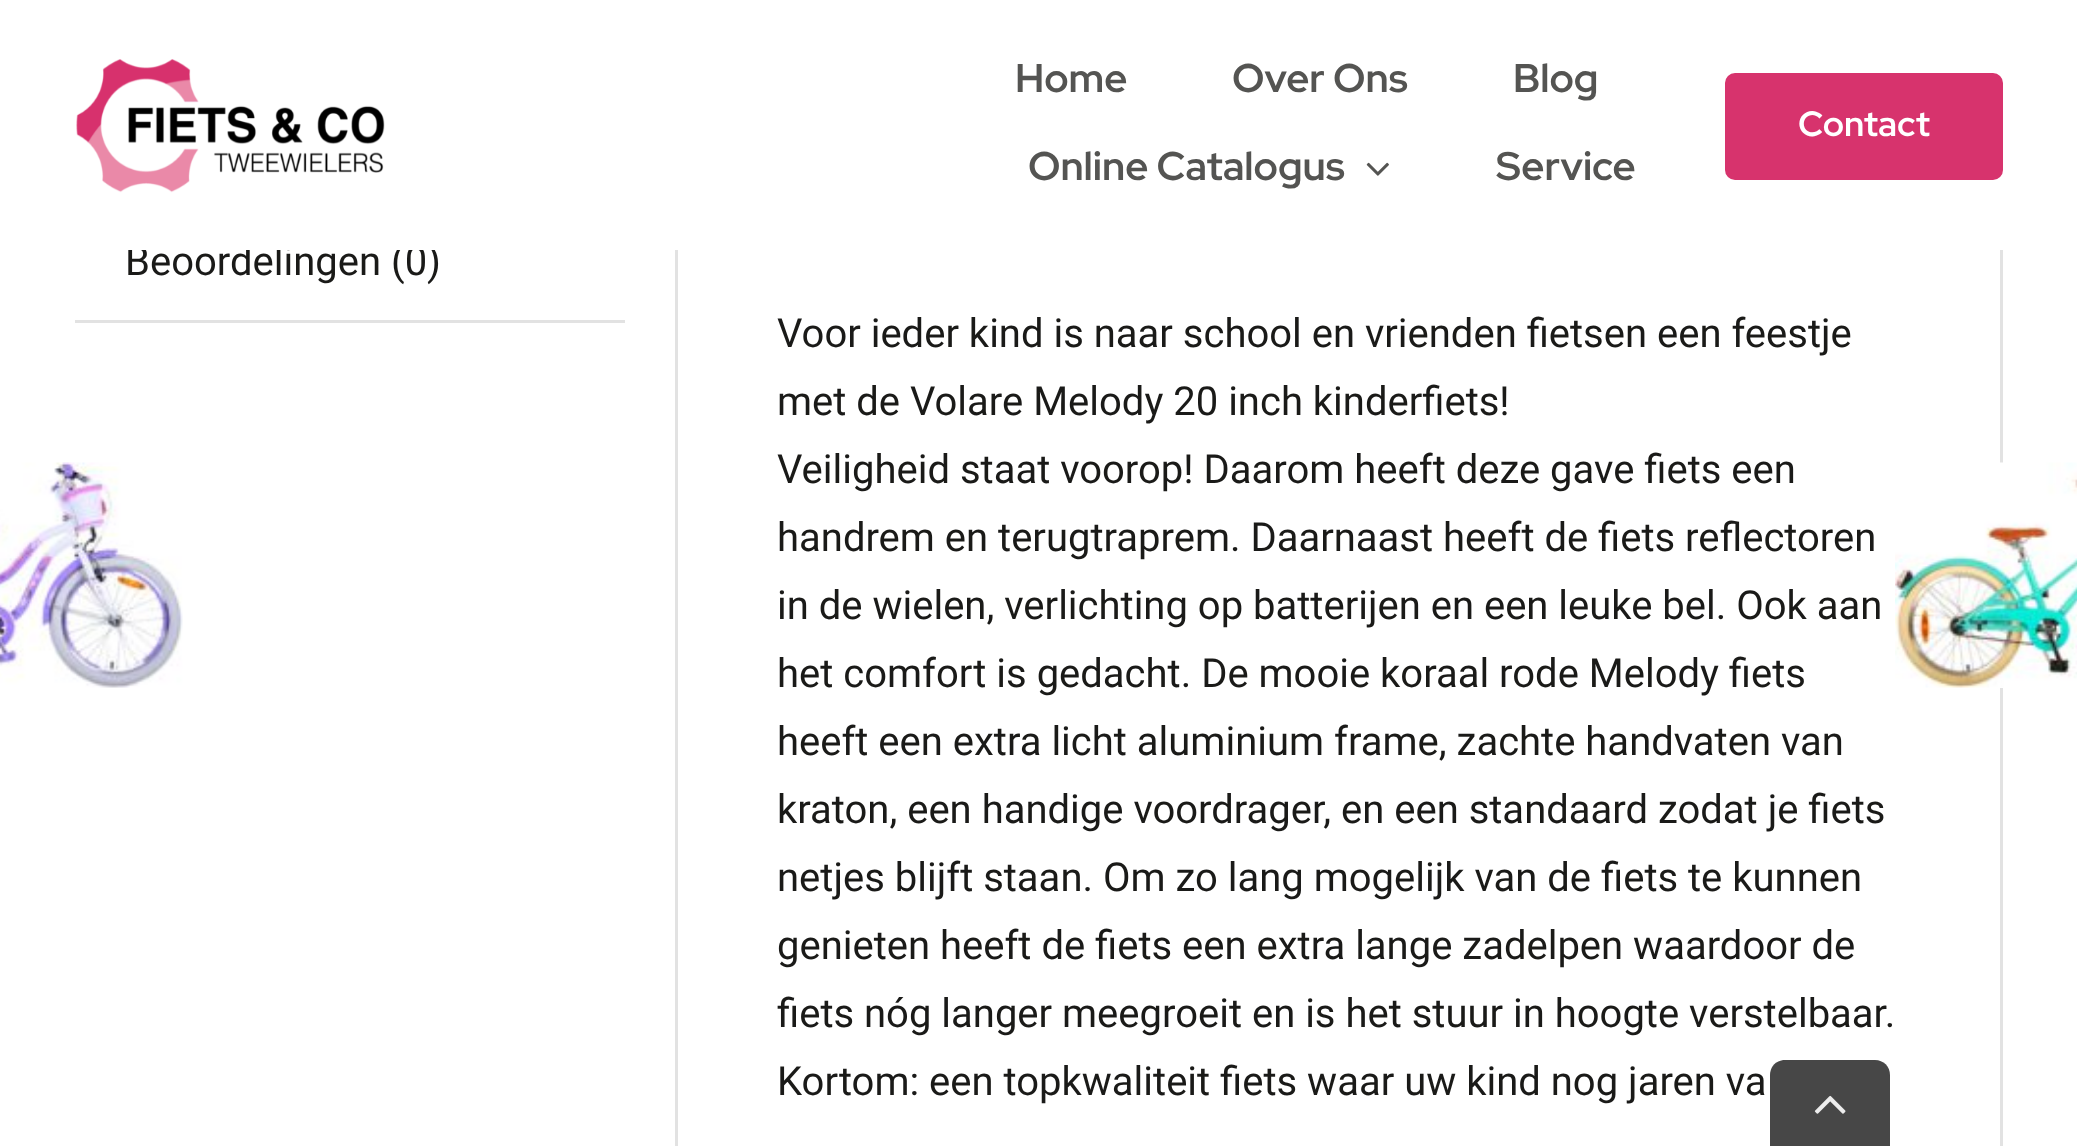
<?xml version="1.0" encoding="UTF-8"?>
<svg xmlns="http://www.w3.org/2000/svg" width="2077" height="1146">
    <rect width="100%" height="100%" fill="#FFFFFF"/>
    <text x="125" y="275" font-family="Roboto" font-size="40" fill="#1A1A18">Beoordelingen (0)</text>
    <rect x="676.5" y="84.5" width="1325" height="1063" fill="none" stroke="#E2E2E2" stroke-width="3"/>
    <rect x="128" y="83" width="1875" height="167" fill="#FFFFFF"/>
    <image x="76" y="59" width="309" height="134" href="img_01.png"/>
    <text x="1015" y="92" font-family="Red Hat Display" font-size="40" font-weight="700" fill="#545452">Home</text>
    <text x="1232" y="92" font-family="Red Hat Display" font-size="40" font-weight="700" fill="#545452">Over Ons</text>
    <text x="1513" y="92" font-family="Red Hat Display" font-size="40" font-weight="700" fill="#545452">Blog</text>
    <text x="1028" y="180" font-family="Red Hat Display" font-size="40" font-weight="700" fill="#545452">Online Catalogus</text>
    <image x="1366" y="162" width="23" height="14" href="img_02.png"/>
    <text x="1496" y="180" font-family="Red Hat Display" font-size="40" font-weight="700" fill="#545452">Service</text>
    <rect x="1725" y="73" width="278" height="107" rx="10" fill="#D7336D"/>
    <text x="1798" y="136" font-family="Red Hat Display" font-size="35" font-weight="700" fill="#FFFFFF">Contact</text>
    <rect x="75" y="320" width="550" height="3" fill="#E2E2E2"/>
    <text font-family="Roboto" font-size="40" fill="#1A1A18">
        <tspan x="777" y="347">Voor ieder kind is naar school en vrienden fietsen een feestje</tspan>
        <tspan x="777" y="415">met de Volare Melody 20 inch kinderfiets!</tspan>
        <tspan x="777" y="483">Veiligheid staat voorop! Daarom heeft deze gave fiets een</tspan>
        <tspan x="777" y="551">handrem en terugtraprem. Daarnaast heeft de fiets reflectoren</tspan>
        <tspan x="777" y="619">in de wielen, verlichting op batterijen en een leuke bel. Ook aan</tspan>
        <tspan x="777" y="687">het comfort is gedacht. De mooie koraal rode Melody fiets</tspan>
        <tspan x="777" y="755">heeft een extra licht aluminium frame, zachte handvaten van</tspan>
        <tspan x="777" y="823">kraton, een handige voordrager, en een standaard zodat je fiets</tspan>
        <tspan x="777" y="891">netjes blijft staan. Om zo lang mogelijk van de fiets te kunnen</tspan>
        <tspan x="777" y="959">genieten heeft de fiets een extra lange zadelpen waardoor de</tspan>
        <tspan x="777" y="1027">fiets nóg langer meegroeit en is het stuur in hoogte verstelbaar.</tspan>
        <tspan x="777" y="1095">Kortom: een topkwaliteit fiets waar uw kind nog jaren va</tspan>
    </text>
    <image x="0" y="462" width="183" height="226" href="img_03.png"/>
    <rect x="2000" y="687" width="3" height="1" fill="#FFFFFF"/>
    <image x="1895" y="462" width="182" height="226" href="img_04.png"/>
    <path d="M 1785 1060 H 1875 C 1883.5 1060 1890 1066.5 1890 1075 V 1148 H 1770 V 1075 C 1770 1066.5 1776.5 1060 1785 1060 Z" fill="#333333" fill-opacity="0.9"/>
    <image x="1814" y="1095" width="32" height="19" href="img_05.png"/>
</svg>
